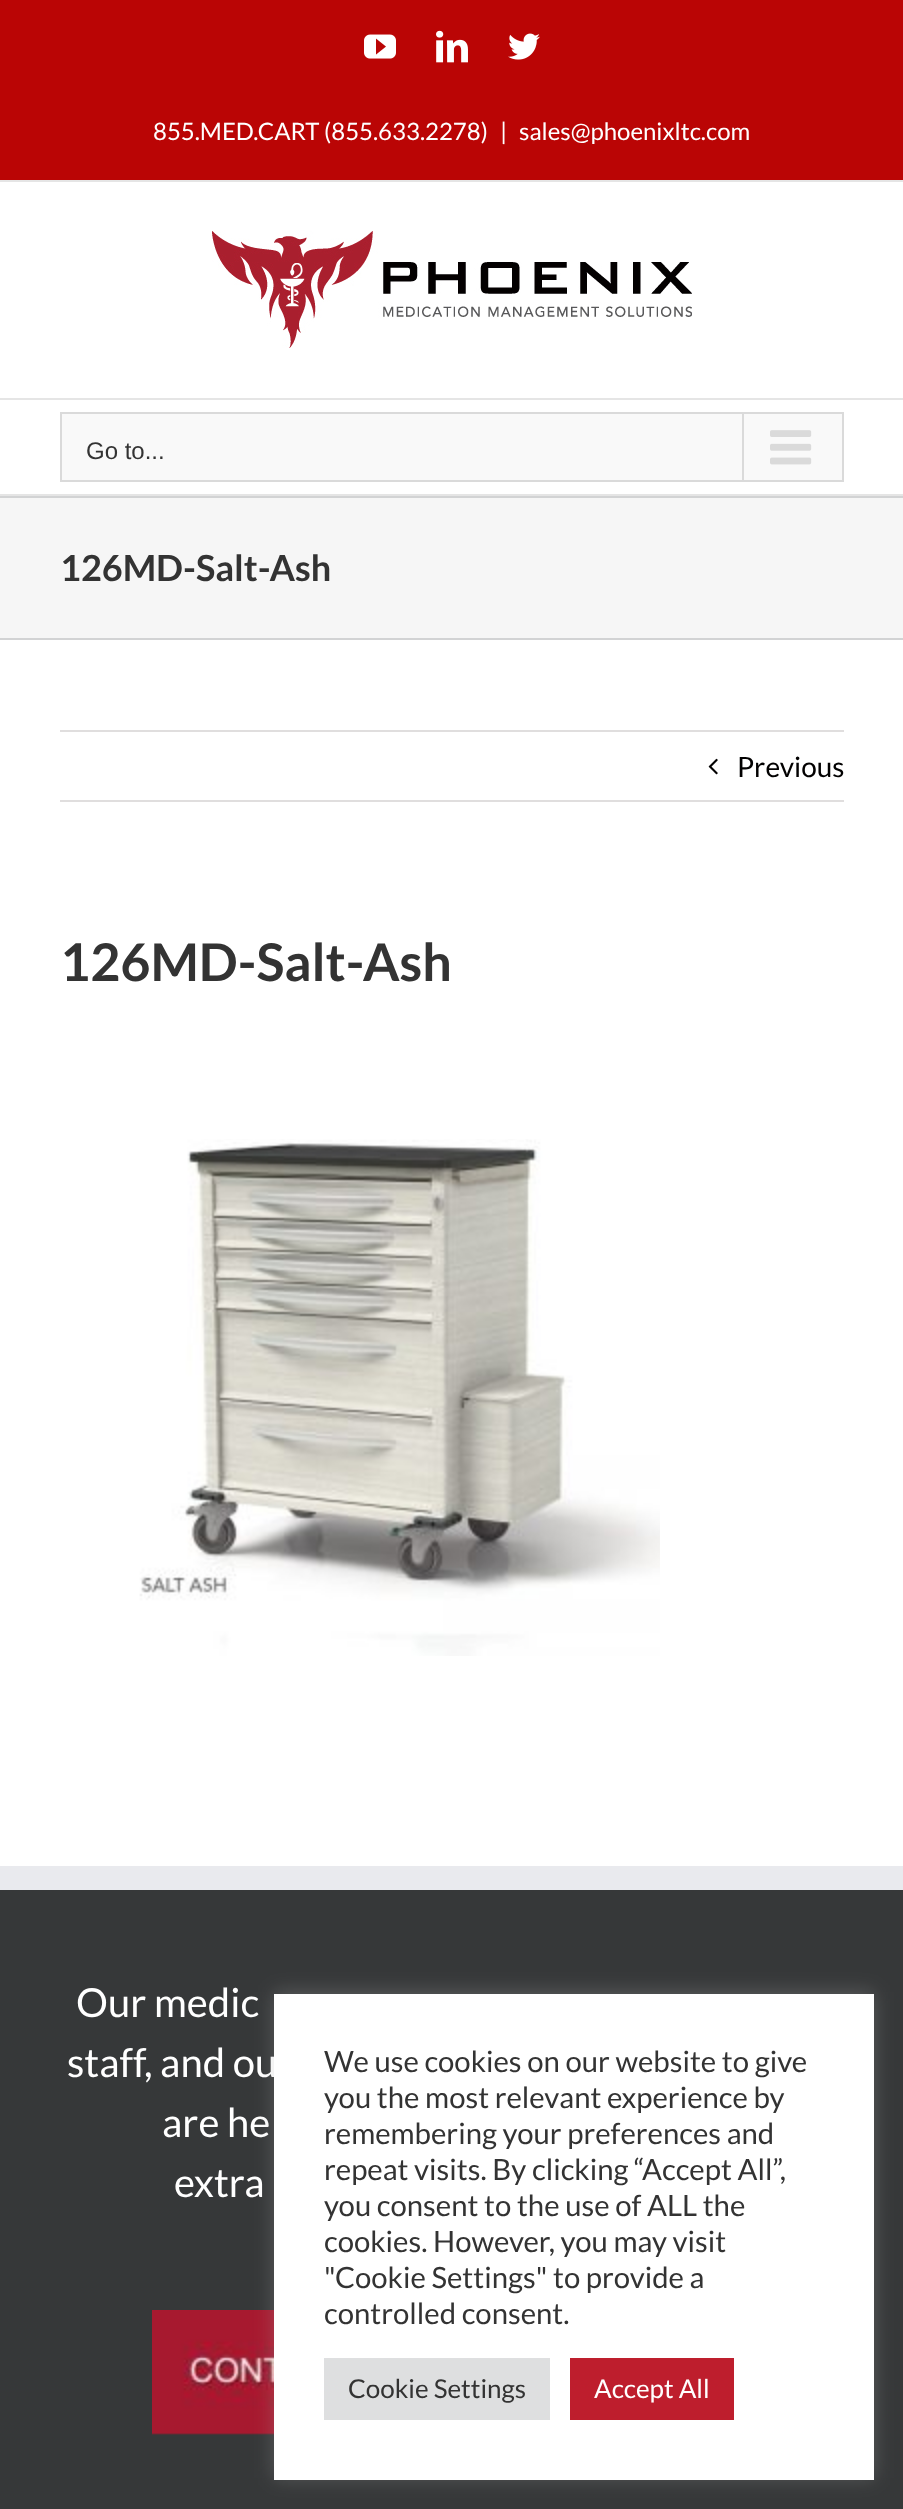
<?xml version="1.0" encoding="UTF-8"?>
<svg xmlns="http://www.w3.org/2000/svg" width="903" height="2509">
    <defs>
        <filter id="blur1" x="-50%" y="-200%" width="200%" height="500%"><feGaussianBlur stdDeviation="10"/></filter>
    </defs>
    <rect width="100%" height="100%" fill="#FFFFFF"/>
    <rect x="0" y="0" width="903" height="180" fill="#BA0505"/>
    <rect x="0" y="180" width="903" height="2" fill="#E5E5E5"/>
    <image x="364" y="34" width="32" height="25" href="img_01.png"/>
    <image x="436" y="30" width="32" height="33" href="img_02.png"/>
    <image x="508" y="33" width="32" height="27" href="img_03.png"/>
    <text x="153" y="140" font-family="Lato" font-size="24" fill="#FFFFFF">855.MED.CART (855.633.2278)</text>
    <text x="500" y="140" font-family="Lato" font-size="24" fill="#FFFFFF">|</text>
    <text x="519" y="140" font-family="Lato" font-size="24" fill="#FFFFFF">sales@phoenixltc.com</text>
    <rect x="0" y="398" width="903" height="2" fill="#E5E5E5"/>
    <image x="212" y="230" width="480" height="118" href="img_04.png"/>
    <rect x="0" y="494" width="903" height="2" fill="#E5E5E5"/>
    <rect x="61" y="413" width="782" height="68" fill="#F9F9F9" stroke="#DADADA" stroke-width="2"/>
    <text x="86" y="459" font-family="Liberation Sans" font-size="24" fill="#333333">Go to...</text>
    <rect x="742" y="414" width="2" height="66" fill="#DADADA"/>
    <image x="770" y="430" width="42" height="35" href="img_05.png"/>
    <rect x="0" y="498" width="903" height="140" fill="#F6F6F6"/>
    <rect x="0" y="496" width="903" height="2" fill="#D2D3D4"/>
    <rect x="0" y="638" width="903" height="2" fill="#D2D3D4"/>
    <text x="60" y="581" font-family="Lato" font-size="36" font-weight="700" fill="#333333">126MD-Salt-Ash</text>
    <rect x="60" y="730" width="784" height="2" fill="#E0DEDE"/>
    <rect x="60" y="800" width="784" height="2" fill="#E0DEDE"/>
    <image x="708" y="758" width="10" height="17" href="img_06.png"/>
    <text x="737" y="777" font-family="Lato" font-size="28" fill="#020101">Previous</text>
    <text x="60" y="981" font-family="Lato" font-size="52" font-weight="700" fill="#333333">126MD-Salt-Ash</text>
    <image x="139" y="1139" width="521" height="517" href="img_07.png"/>
    <rect x="0" y="1890" width="903" height="619" fill="#363839"/>
    <rect x="0" y="1866" width="903" height="24" fill="#E9EAEE"/>
    <text x="76" y="2017" font-family="Lato" font-size="40" fill="#FFFFFF">Our medic</text>
    <text x="67" y="2077" font-family="Lato" font-size="40" fill="#FFFFFF">staff, and ou</text>
    <text x="162" y="2137" font-family="Lato" font-size="40" fill="#FFFFFF">are he</text>
    <text x="174" y="2197" font-family="Lato" font-size="40" fill="#FFFFFF">extra</text>
    <image x="152" y="2310" width="122" height="125" href="img_08.png"/>
    <rect x="274" y="1992" width="600" height="486" fill="#ACABAB" fill-opacity="0.3" filter="url(#blur1)"/>
    <rect x="274" y="1994" width="600" height="486" fill="#FFFFFF"/>
    <text font-family="Lato" font-size="29.3" fill="#333333">
        <tspan x="324" y="2072">We use cookies on our website to give</tspan>
        <tspan x="324" y="2108">you the most relevant experience by</tspan>
        <tspan x="324" y="2144">remembering your preferences and</tspan>
        <tspan x="324" y="2180">repeat visits. By clicking “Accept All”,</tspan>
        <tspan x="324" y="2216">you consent to the use of ALL the</tspan>
        <tspan x="324" y="2252">cookies. However, you may visit</tspan>
        <tspan x="324" y="2288">"Cookie Settings" to provide a</tspan>
        <tspan x="324" y="2324">controlled consent.</tspan>
    </text>
    <rect x="324" y="2358" width="226" height="62" fill="#DEDFE0"/>
    <text x="348" y="2398" font-family="Lato" font-size="26" fill="#333333">Cookie Settings</text>
    <rect x="570" y="2358" width="164" height="62" fill="#BE1E2D"/>
    <text x="594" y="2398" font-family="Lato" font-size="26" fill="#FFFFFF">Accept All</text>
</svg>
